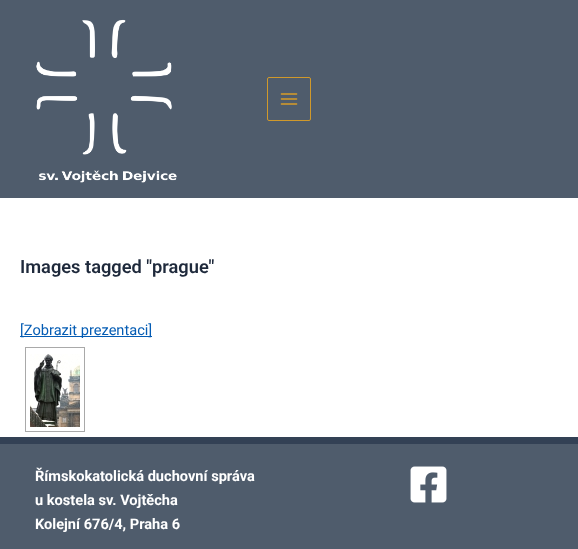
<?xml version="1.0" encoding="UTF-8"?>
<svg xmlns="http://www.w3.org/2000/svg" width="578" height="549">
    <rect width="100%" height="100%" fill="#FFFFFF"/>
    <rect x="0" y="0" width="578" height="198" fill="#4F5C6C"/>
    <image x="36" y="19" width="141" height="164" href="img_01.png"/>
    <rect x="267.5" y="77.5" width="43" height="43" rx="1.5" fill="none" stroke="#D0992B"/>
    <image x="280" y="93" width="18" height="12" href="img_02.png"/>
    <text x="20" y="273" font-family="Roboto" font-size="18.25" font-weight="600" fill="#1E293B">Images tagged "prague"</text>
    <rect x="20" y="336" width="132" height="1" fill="#045CB4"/>
    <text x="20" y="335" font-family="Roboto" font-size="14.6" fill="#045CB4">[Zobrazit prezentaci]</text>
    <rect x="25.5" y="347.5" width="59" height="84" fill="none" stroke="#A9A9A9"/>
    <image x="30" y="354" width="50" height="73" href="img_03.png"/>
    <rect x="0" y="444" width="578" height="105" fill="#4F5C6C"/>
    <rect x="0" y="437" width="578" height="7" fill="#334155"/>
    <text font-family="Roboto" font-size="14.6" font-weight="700" fill="#FFFFFF">
        <tspan x="35" y="481">Římskokatolická duchovní správa</tspan>
        <tspan x="35" y="505">u kostela sv. Vojtěcha</tspan>
        <tspan x="35" y="529">Kolejní 676/4, Praha 6</tspan>
    </text>
    <image x="410" y="466" width="37" height="37" href="img_04.png"/>
</svg>
